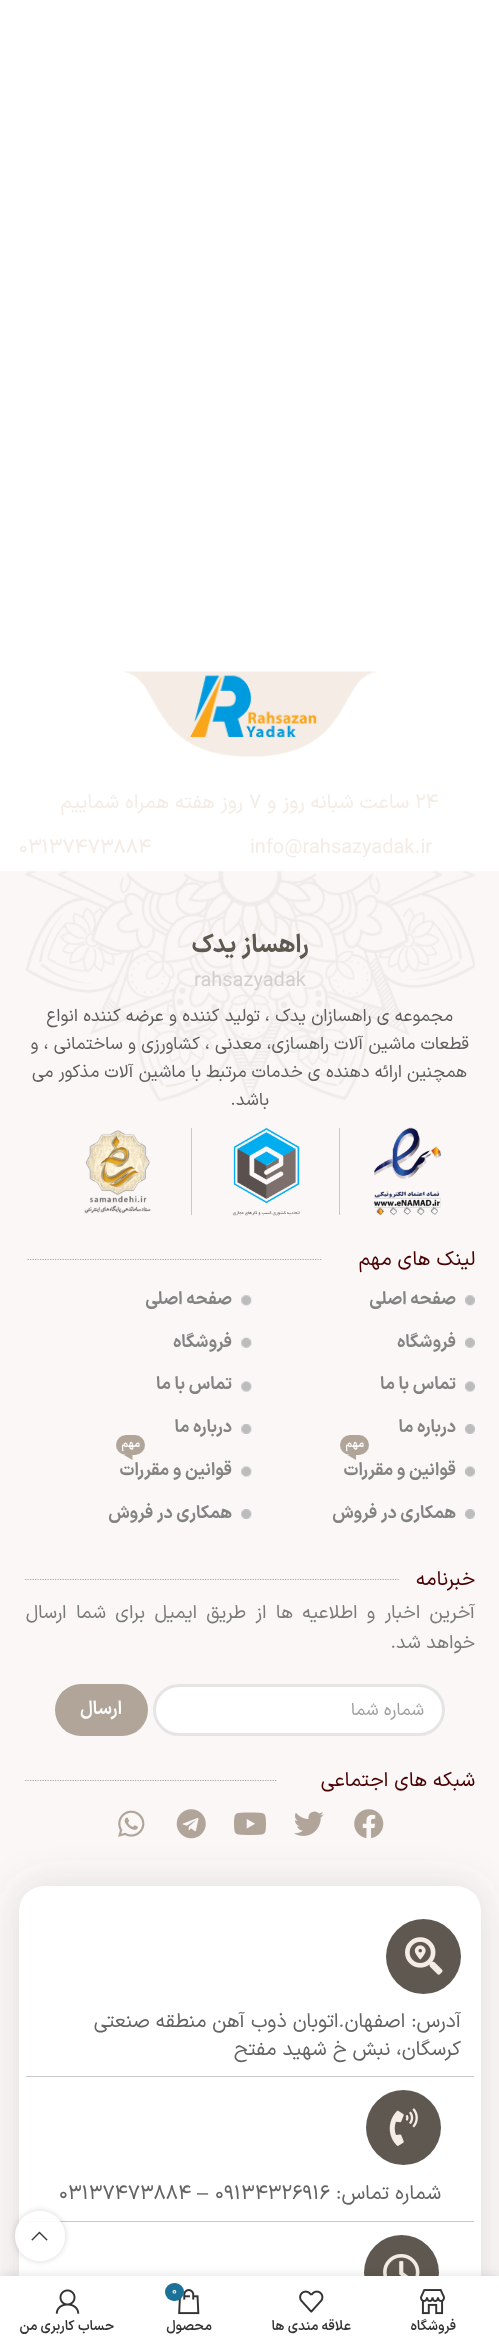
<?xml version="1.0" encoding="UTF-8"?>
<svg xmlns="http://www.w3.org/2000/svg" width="499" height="2344">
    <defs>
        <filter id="blur1" x="-50%" y="-200%" width="200%" height="500%"><feGaussianBlur stdDeviation="19"/></filter>
        <clipPath id="clip1"><path d="M 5 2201 H 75 V 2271 H 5 Z M 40 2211 C 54 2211 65 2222 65 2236 C 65 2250 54 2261 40 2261 C 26 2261 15 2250 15 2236 C 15 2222 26 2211 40 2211 Z" clip-rule="evenodd"/></clipPath>
        <filter id="blur2" x="-50%" y="-200%" width="200%" height="500%"><feGaussianBlur stdDeviation="3"/></filter>
        <filter id="blur3" x="-50%" y="-200%" width="200%" height="500%"><feGaussianBlur stdDeviation="5.5"/></filter>
    </defs>
    <rect width="100%" height="100%" fill="#FFFFFF"/>
    <image x="124" y="671" width="253" height="86" href="img_01.png"/>
    <text x="415" y="808" font-family="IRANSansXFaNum" font-size="20" fill="#F4ECE5">۲۴</text>
    <text x="409" y="808" font-family="IRANSansXFaNum" font-size="20" direction="rtl" fill="#F4ECE5">ساعت شبانه روز و</text>
    <text x="249" y="808" font-family="IRANSansXFaNum" font-size="20" fill="#F4ECE5">۷</text>
    <text x="243" y="808" font-family="IRANSansXFaNum" font-size="20" direction="rtl" fill="#F4ECE5">روز هفته همراه شماییم</text>
    <text x="250" y="853" font-family="IRANSansXFaNum" font-size="20" fill="#F4ECE5">info@rahsazyadak.ir</text>
    <text x="19" y="853" font-family="IRANSansXFaNum" font-size="20" fill="#F4ECE5">۰۳۱۳۷۴۷۳۸۸۴</text>
    <rect x="0" y="871" width="499" height="1405" fill="#FAF7F6"/>
    <image x="25" y="871" width="450" height="231" href="img_02.png"/>
    <text x="309" y="952" font-family="IRANSansXFaNum" font-size="25" font-weight="700" direction="rtl" fill="#5F5851">راهساز یدک</text>
    <text x="194" y="986" font-family="IRANSansXFaNum" font-size="20" fill="#D2CFCE">rahsazyadak</text>
    <text x="453" y="1021" font-family="IRANSansXFaNum" font-size="17.5" direction="rtl" fill="#5C5C5C">مجموعه ی راهسازان یدک ، تولید کننده و عرضه کننده انواع</text>
    <text x="469" y="1049" font-family="IRANSansXFaNum" font-size="17.5" direction="rtl" fill="#5C5C5C">قطعات ماشین آلات راهسازی، معدنی ، کشاورزی و ساختمانی ، و</text>
    <text x="467" y="1077" font-family="IRANSansXFaNum" font-size="17.5" direction="rtl" fill="#5C5C5C">همچنین ارائه دهنده ی خدمات مرتبط با ماشین آلات مذکور می</text>
    <text x="269" y="1105" font-family="IRANSansXFaNum" font-size="17.5" direction="rtl" fill="#5C5C5C">باشد.</text>
    <image x="374" y="1127" width="68" height="89" href="img_03.png"/>
    <rect x="339" y="1128" width="1" height="87" fill="#C9C9C9"/>
    <rect x="191" y="1128" width="1" height="87" fill="#C9C9C9"/>
    <image x="232" y="1127" width="68" height="89" href="img_04.png"/>
    <image x="84" y="1130" width="67" height="84" href="img_05.png"/>
    <text x="475" y="1265" font-family="IRANSansXFaNum" font-size="20" direction="rtl" fill="#490000">لینک های مهم</text>
    <path d="M 27.5 1259.5 H 322.5" fill="none" stroke="#A7A7A7" stroke-width="1.2" stroke-dasharray="1.25 1.25"/>
    <image x="465" y="1295" width="10" height="11" href="img_06.png"/>
    <text x="456" y="1304" font-family="IRANSansXFaNum" font-size="17.5" font-weight="700" direction="rtl" fill="#838383">صفحه اصلی</text>
    <image x="465" y="1337" width="10" height="11" href="img_07.png"/>
    <text x="456" y="1347" font-family="IRANSansXFaNum" font-size="17.5" font-weight="700" direction="rtl" fill="#838383">فروشگاه</text>
    <image x="465" y="1381" width="10" height="11" href="img_08.png"/>
    <text x="456" y="1389" font-family="IRANSansXFaNum" font-size="17.5" font-weight="700" direction="rtl" fill="#838383">تماس با ما</text>
    <image x="465" y="1424" width="10" height="10" href="img_09.png"/>
    <text x="456" y="1432" font-family="IRANSansXFaNum" font-size="17.5" font-weight="700" direction="rtl" fill="#838383">درباره ما</text>
    <rect x="340" y="1435" width="29" height="20" rx="10" fill="#B1A59A"/>
    <text x="364" y="1447" font-family="IRANSansXFaNum" font-size="11" font-weight="600" direction="rtl" fill="#FFFFFF">مهم</text>
    <path d="M 347.5 1455 H 356 V 1460 Z" fill="#B1A59A"/>
    <image x="465" y="1466" width="10" height="11" href="img_08.png"/>
    <text x="456" y="1475" font-family="IRANSansXFaNum" font-size="17.5" font-weight="700" direction="rtl" fill="#838383">قوانین و مقررات</text>
    <image x="465" y="1509" width="10" height="10" href="img_10.png"/>
    <text x="456" y="1518" font-family="IRANSansXFaNum" font-size="17.5" font-weight="700" direction="rtl" fill="#838383">همکاری در فروش</text>
    <image x="241" y="1295" width="11" height="11" href="img_11.png"/>
    <text x="232" y="1304" font-family="IRANSansXFaNum" font-size="17.5" font-weight="700" direction="rtl" fill="#838383">صفحه اصلی</text>
    <image x="241" y="1337" width="11" height="11" href="img_12.png"/>
    <text x="232" y="1347" font-family="IRANSansXFaNum" font-size="17.5" font-weight="700" direction="rtl" fill="#838383">فروشگاه</text>
    <image x="241" y="1381" width="11" height="11" href="img_13.png"/>
    <text x="232" y="1389" font-family="IRANSansXFaNum" font-size="17.5" font-weight="700" direction="rtl" fill="#838383">تماس با ما</text>
    <image x="241" y="1424" width="11" height="10" href="img_14.png"/>
    <text x="232" y="1432" font-family="IRANSansXFaNum" font-size="17.5" font-weight="700" direction="rtl" fill="#838383">درباره ما</text>
    <rect x="116" y="1435" width="29" height="20" rx="10" fill="#B1A59A"/>
    <text x="140" y="1447" font-family="IRANSansXFaNum" font-size="11" font-weight="600" direction="rtl" fill="#FFFFFF">مهم</text>
    <path d="M 124 1455 H 132.5 V 1460 Z" fill="#B1A59A"/>
    <image x="241" y="1466" width="11" height="11" href="img_13.png"/>
    <text x="232" y="1475" font-family="IRANSansXFaNum" font-size="17.5" font-weight="700" direction="rtl" fill="#838383">قوانین و مقررات</text>
    <image x="241" y="1509" width="11" height="10" href="img_15.png"/>
    <text x="232" y="1518" font-family="IRANSansXFaNum" font-size="17.5" font-weight="700" direction="rtl" fill="#838383">همکاری در فروش</text>
    <text x="475" y="1585" font-family="IRANSansXFaNum" font-size="20" direction="rtl" fill="#490000">خبرنامه</text>
    <path d="M 25 1579.5 H 399" fill="none" stroke="#A7A7A7" stroke-width="1.2" stroke-dasharray="1.25 1.25"/>
    <text font-family="IRANSansXFaNum" font-size="18.75" direction="rtl" fill="#7A7A7A">
        <tspan x="475" y="1618" word-spacing="3.75">آخرین اخبار و اطلاعیه ها از طریق ایمیل برای شما ارسال</tspan>
        <tspan x="475" y="1648">خواهد شد.</tspan>
    </text>
    <rect x="154.5" y="1685.5" width="289" height="49" rx="24.5" fill="#FFFFFF" stroke="#E5E5E5" stroke-width="3"/>
    <text x="424" y="1715" font-family="IRANSansXFaNum" font-size="17.5" direction="rtl" fill="#A0A0A0">شماره شما</text>
    <rect x="55" y="1684" width="93" height="52" rx="26" fill="#B1A59A"/>
    <text x="122" y="1714" font-family="IRANSansXFaNum" font-size="18.75" font-weight="600" direction="rtl" fill="#FFFFFF">ارسال</text>
    <text x="475" y="1786" font-family="IRANSansXFaNum" font-size="20" direction="rtl" fill="#490000">شبکه های اجتماعی</text>
    <path d="M 25 1780.5 H 277.5" fill="none" stroke="#A7A7A7" stroke-width="1.2" stroke-dasharray="1.25 1.25"/>
    <image x="354" y="1809" width="30" height="29" href="img_16.png"/>
    <image x="294" y="1811" width="30" height="25" href="img_17.png"/>
    <image x="234" y="1812" width="32" height="23" href="img_18.png"/>
    <image x="176" y="1809" width="30" height="30" href="img_19.png"/>
    <image x="118" y="1810" width="27" height="27" href="img_20.png"/>
    <rect x="19" y="1886" width="462" height="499" rx="25" fill="#656565" fill-opacity="0.18" filter="url(#blur1)"/>
    <rect x="19" y="1886" width="462" height="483" rx="25" fill="#FFFFFF"/>
    <circle cx="423.5" cy="1956.5" r="37.5" fill="#5F5851"/>
    <image x="405" y="1937" width="38" height="38" href="img_21.png"/>
    <text font-family="IRANSansXFaNum" font-size="20" direction="rtl" fill="#636363">
        <tspan x="461" y="2027">آدرس: اصفهان.اتوبان ذوب آهن منطقه صنعتی</tspan>
        <tspan x="461" y="2055">کرسگان، نبش خ شهید مفتح</tspan>
    </text>
    <rect x="26" y="2076" width="448" height="1" fill="#C9C9C9"/>
    <rect x="26" y="2221" width="448" height="1" fill="#C9C9C9"/>
    <circle cx="403.5" cy="2127.5" r="37.5" fill="#5F5851"/>
    <image x="389" y="2108" width="29" height="38" href="img_22.png"/>
    <text x="441" y="2199" font-family="IRANSansXFaNum" font-size="20" direction="rtl" fill="#636363">شماره تماس:</text>
    <text x="215" y="2199" font-family="IRANSansXFaNum" font-size="20" fill="#636363">۰۹۱۳۴۳۲۶۹۱۶</text>
    <text x="197" y="2199" font-family="Liberation Sans" font-size="20" fill="#636363">–</text>
    <text x="59" y="2199" font-family="IRANSansXFaNum" font-size="20" fill="#636363">۰۳۱۳۷۴۷۳۸۸۴</text>
    <circle cx="401.5" cy="2272.5" r="37.5" fill="#5F5851"/>
    <image x="383" y="2254" width="37" height="22" href="img_23.png"/>
    <g clip-path="url(#clip1)">
        <rect x="15" y="2211" width="50" height="50" rx="25" fill="#000000" fill-opacity="0.17" filter="url(#blur2)"/>
    </g>
    <circle cx="40" cy="2236" r="25" fill="#FFFFFF" fill-opacity="0.9"/>
    <image x="31" y="2231" width="17" height="10" href="img_24.png"/>
    <rect x="0" y="2276" width="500" height="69" fill="#000000" fill-opacity="0.12" filter="url(#blur3)"/>
    <rect x="0" y="2276" width="499" height="68" fill="#FFFFFF"/>
    <image x="420" y="2289" width="25" height="26" href="img_25.png"/>
    <text x="456" y="2330" font-family="IRANSansXFaNum" font-size="13.75" font-weight="600" direction="rtl" fill="#333333">فروشگاه</text>
    <image x="299" y="2290" width="25" height="23" href="img_26.png"/>
    <text x="351" y="2330" font-family="IRANSansXFaNum" font-size="13.75" font-weight="600" direction="rtl" fill="#333333">علاقه مندی ها</text>
    <image x="178" y="2289" width="22" height="26" href="img_27.png"/>
    <rect x="165" y="2283" width="19" height="18" rx="9" fill="#1B7197"/>
    <text x="172" y="2294" font-family="IRANSansXFaNum" font-size="11" fill="#FFFFFF">0</text>
    <text x="212" y="2330" font-family="IRANSansXFaNum" font-size="13.75" font-weight="600" direction="rtl" fill="#333333">محصول</text>
    <image x="55" y="2289" width="25" height="25" href="img_28.png"/>
    <text x="114" y="2330" font-family="IRANSansXFaNum" font-size="13.75" font-weight="600" direction="rtl" fill="#333333">حساب کاربری من</text>
</svg>
